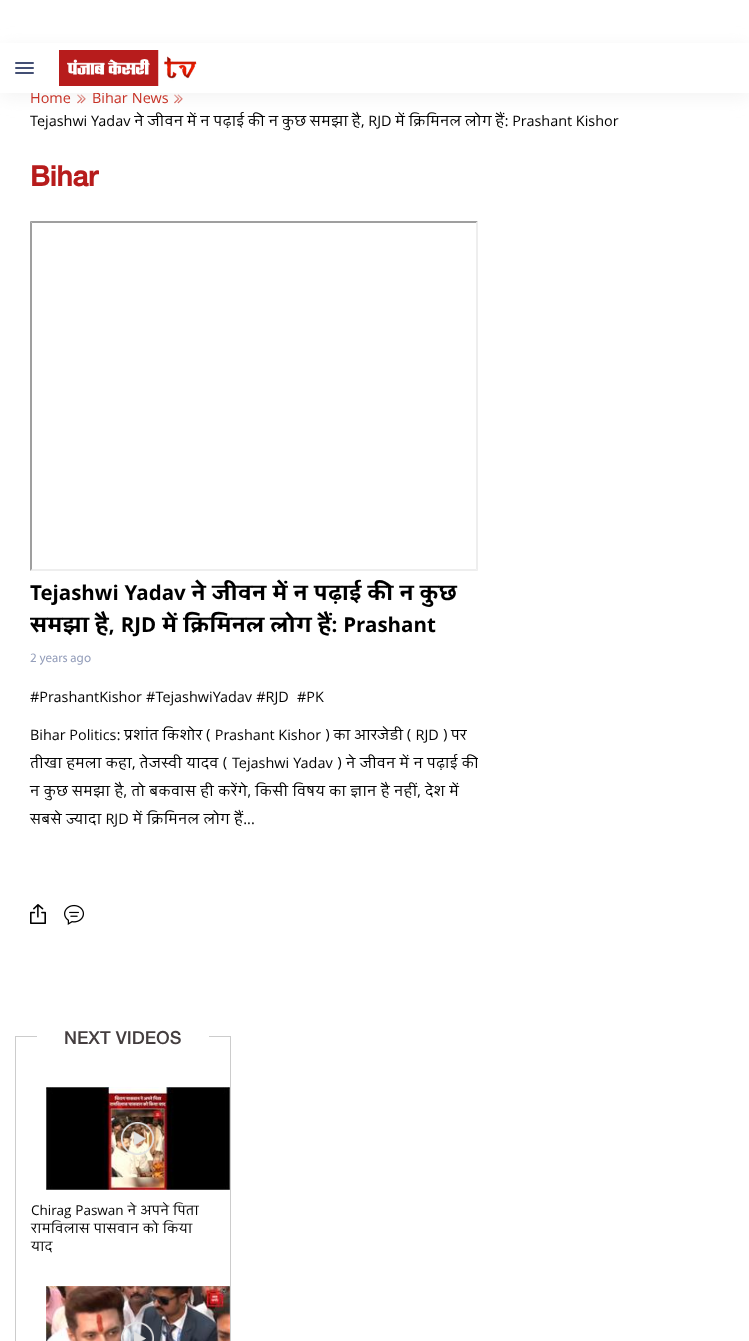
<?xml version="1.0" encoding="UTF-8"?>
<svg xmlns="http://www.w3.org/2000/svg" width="749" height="1341">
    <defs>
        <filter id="blur1" x="-50%" y="-200%" width="200%" height="500%"><feGaussianBlur stdDeviation="8.5"/></filter>
        <clipPath id="clip1"><rect x="30" y="578" width="448" height="64"/></clipPath>
        <clipPath id="clip2"><rect x="30" y="722" width="448" height="112"/></clipPath>
    </defs>
    <rect width="100%" height="100%" fill="#FFFFFF"/>
    <image x="77" y="94" width="9" height="10" href="img_02.png"/>
    <image x="174" y="94" width="9" height="10" href="img_02.png"/>
    <rect x="1" y="47" width="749" height="50" fill="#F3F3F3" filter="url(#blur1)"/>
    <text x="30" y="103" font-family="Khula" font-size="16" fill="#C63024">Home</text>
    <text x="92" y="103" font-family="Khula" font-size="16" fill="#C63024">Bihar News</text>
    <rect x="0" y="43" width="749" height="50" fill="#FFFFFF"/>
    <rect x="15" y="62" width="19" height="2" rx="1" fill="#434F74"/>
    <rect x="15" y="67" width="19" height="2" rx="1" fill="#434F74"/>
    <rect x="15" y="72" width="19" height="2" rx="1" fill="#434F74"/>
    <image x="59" y="50" width="138" height="36" href="img_01.png"/>
    <text x="30" y="126" word-spacing="-0.4" font-family="Khula" font-size="16" fill="#000000">Tejashwi Yadav ने जीवन में न पढ़ाई की न कुछ समझा है, RJD में क्रिमिनल लोग हैं: Prashant Kishor</text>
    <text x="30" y="186" font-family="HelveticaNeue" font-size="28" font-weight="700" fill="#B71C1C">Bihar</text>
    <path d="M 30 221 H 478 L 476 223 H 32 Z" fill="#9F9F9F"/>
    <path d="M 478 221 V 571 L 476 569 V 223 Z" fill="#EEEEEE"/>
    <path d="M 478 571 H 30 L 32 569 H 476 Z" fill="#EEEEEE"/>
    <path d="M 30 571 V 221 L 32 223 V 569 Z" fill="#9F9F9F"/>
    <text x="30" y="600" font-family="Khula" font-size="22" font-weight="700" fill="#000000">Tejashwi Yadav ने जीवन में न पढ़ाई की न कुछ</text>
    <g clip-path="url(#clip1)">
        <text x="30" y="632" font-family="Khula" font-size="22" font-weight="700" fill="#000000">समझा है, RJD में क्रिमिनल लोग हैं: Prashant</text>
    </g>
    <text x="30" y="662" font-family="'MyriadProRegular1'" font-size="13" fill="#959FBB">2 years ago</text>
    <text x="30" y="702" font-family="Khula" font-size="16" fill="#000000" xml:space="preserve">#PrashantKishor #TejashwiYadav #RJD  #PK</text>
    <text x="30" y="740" word-spacing="-0.5" font-family="Khula" font-size="16" fill="#000000">Bihar Politics: प्रशांत किशोर ( Prashant Kishor ) का आरजेडी ( RJD ) पर</text>
    <g clip-path="url(#clip2)">
        <text x="30" y="768" font-family="Khula" font-size="16" fill="#000000">तीखा हमला कहा, तेजस्वी यादव ( Tejashwi Yadav ) ने जीवन में न पढ़ाई की</text>
    </g>
    <text font-family="Khula" font-size="16" fill="#000000">
        <tspan x="30" y="796">न कुछ समझा है, तो बकवास ही करेंगे, किसी विषय का ज्ञान है नहीं, देश में</tspan>
        <tspan x="30" y="824">सबसे ज्यादा RJD में क्रिमिनल लोग हैं...</tspan>
    </text>
    <image x="30" y="904" width="16" height="20" href="img_03.png"/>
    <image x="64" y="904" width="20" height="21" href="img_04.png"/>
    <rect x="15.5" y="1036.5" width="215" height="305" fill="none" stroke="#CCCCCC"/>
    <rect x="37" y="1036" width="172" height="1" fill="#FFFFFF"/>
    <text x="64" y="1044" font-family="HelveticaNeue" font-size="18" font-weight="500" fill="#443E3F">NEXT VIDEOS</text>
    <image x="46" y="1087" width="184" height="103" href="img_05.png"/>
    <image x="121" y="1122" width="33" height="33" href="img_06.png"/>
    <text font-family="Khula" font-size="15" fill="#000000">
        <tspan x="31" y="1215">Chirag Paswan ने अपने पिता</tspan>
        <tspan x="31" y="1233">रामविलास पासवान को किया</tspan>
        <tspan x="31" y="1251">याद</tspan>
    </text>
    <image x="46" y="1286" width="184" height="55" href="img_07.png"/>
    <image x="121" y="1322" width="33" height="19" href="img_08.png"/>
</svg>
